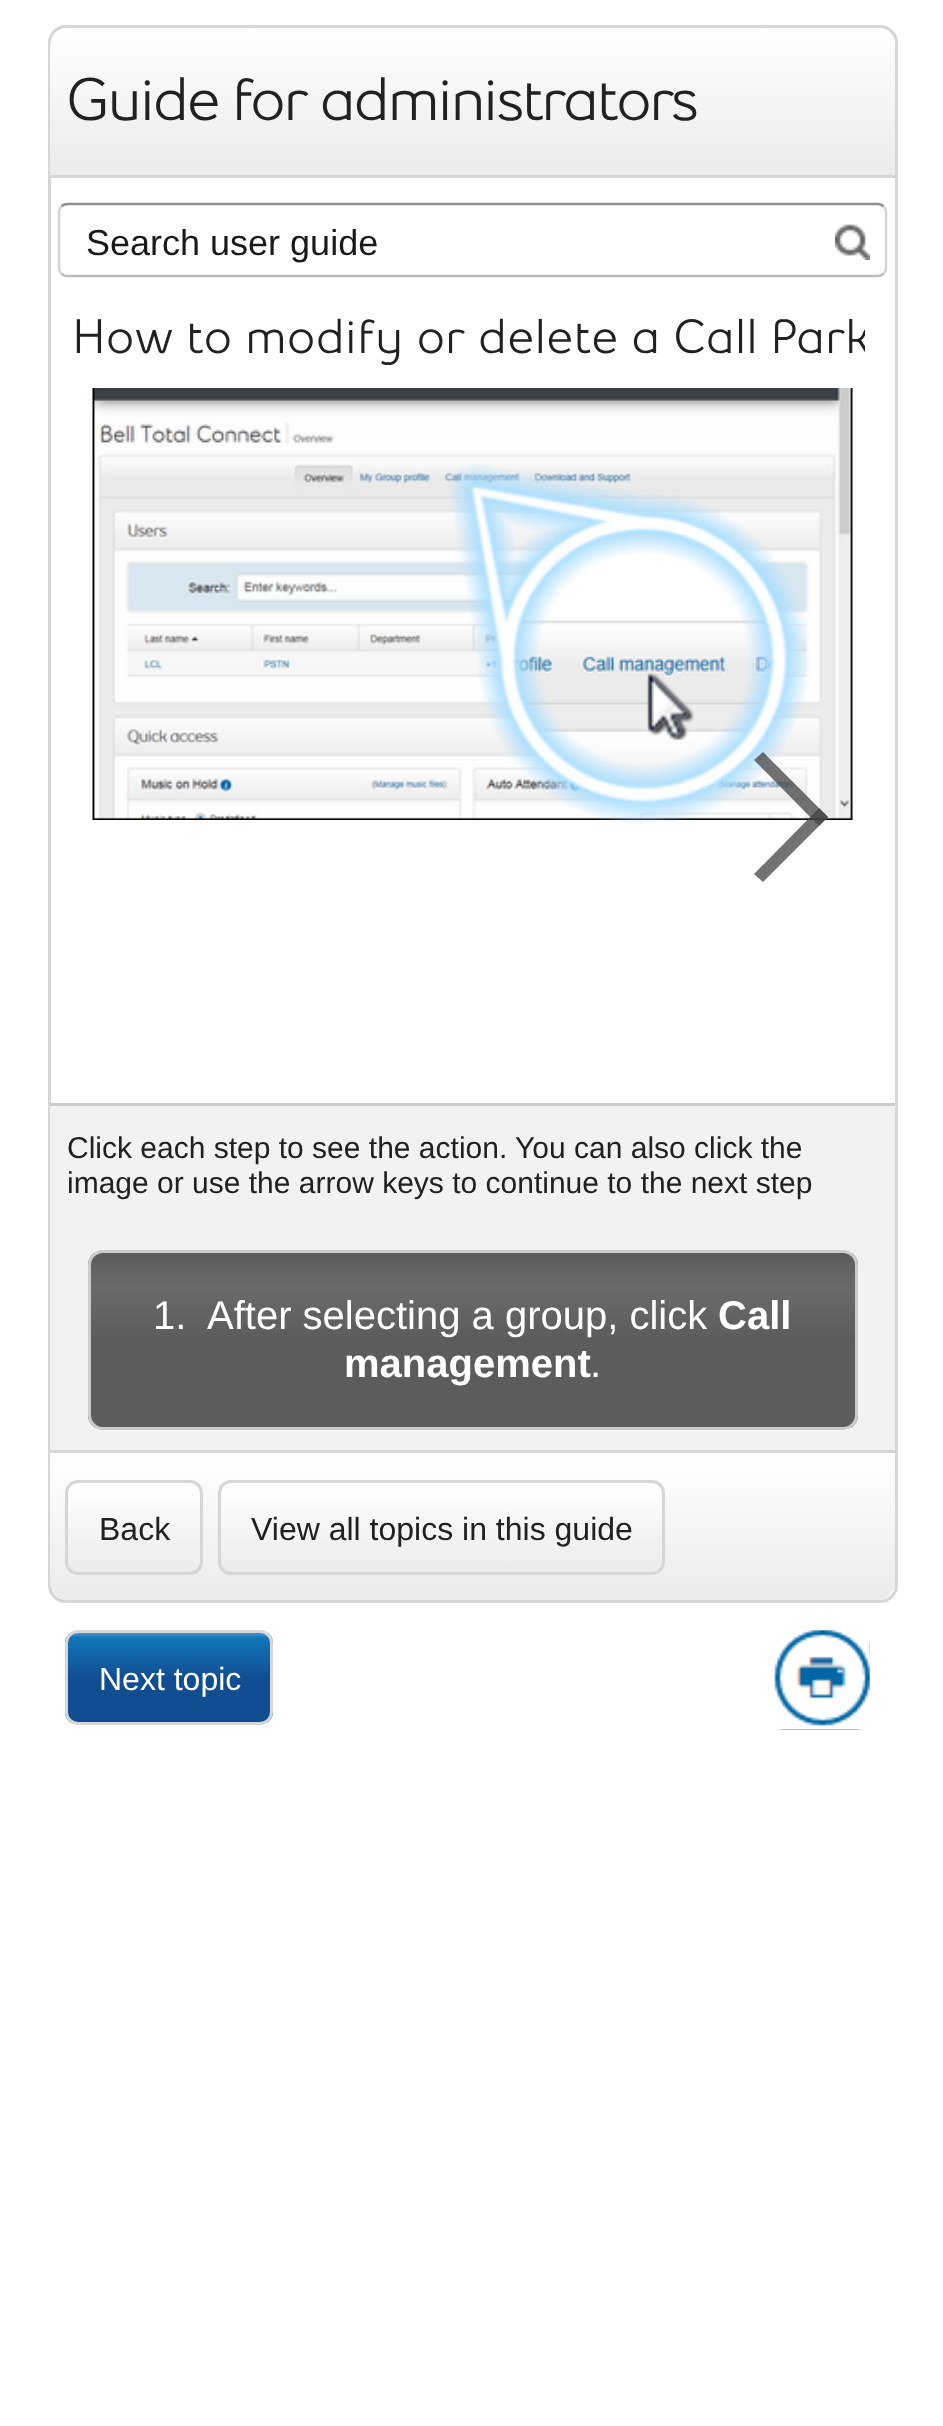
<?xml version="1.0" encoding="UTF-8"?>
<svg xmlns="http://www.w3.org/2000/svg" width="943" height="2426">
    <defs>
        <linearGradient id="g1" gradientUnits="userSpaceOnUse" x1="473" y1="27" x2="473" y2="175"><stop offset="0" stop-color="#FFFFFF"/><stop offset="1" stop-color="#EBEBEB"/></linearGradient>
        <clipPath id="clip1"><rect x="73" y="288" width="792" height="100"/></clipPath>
        <clipPath id="clip2"><rect x="88" y="1250" width="770" height="180" rx="15"/></clipPath>
        <linearGradient id="g2" gradientUnits="userSpaceOnUse" x1="473" y1="1253" x2="473" y2="1428"><stop offset="0" stop-color="#5C5C5C"/><stop offset="0.2" stop-color="#6A6A6A"/><stop offset="0.5" stop-color="#5C5C5C"/></linearGradient>
        <linearGradient id="g3" gradientUnits="userSpaceOnUse" x1="473" y1="1453" x2="473" y2="1600"><stop offset="0" stop-color="#FFFFFF"/><stop offset="1" stop-color="#EBEBEB"/></linearGradient>
        <clipPath id="clip3"><rect x="65" y="1480" width="138" height="95" rx="13"/></clipPath>
        <linearGradient id="g4" gradientUnits="userSpaceOnUse" x1="134" y1="1483" x2="134" y2="1573"><stop offset="0" stop-color="#FFFFFF"/><stop offset="1" stop-color="#EBEBEB"/></linearGradient>
        <clipPath id="clip4"><rect x="218" y="1480" width="447" height="95" rx="13"/></clipPath>
        <linearGradient id="g5" gradientUnits="userSpaceOnUse" x1="441" y1="1483" x2="441" y2="1573"><stop offset="0" stop-color="#FFFFFF"/><stop offset="1" stop-color="#EBEBEB"/></linearGradient>
        <clipPath id="clip5"><rect x="65" y="1630" width="208" height="95" rx="13"/></clipPath>
        <linearGradient id="g6" gradientUnits="userSpaceOnUse" x1="169" y1="1633" x2="169" y2="1723"><stop offset="0" stop-color="#4997CC"/><stop offset="0.05" stop-color="#1376BA"/><stop offset="0.5" stop-color="#114E91"/></linearGradient>
    </defs>
    <rect width="100%" height="100%" fill="#FFFFFF"/>
    <rect x="49.5" y="26.5" width="847" height="1575" rx="16.5" fill="none" stroke="#D6D6D6" stroke-width="3"/>
    <path d="M 68 28 H 877 C 887 28 895 36 895 46 V 175 H 50 V 46 C 50 36 58 28 68 28 Z" fill="url(#g1)"/>
    <rect x="50" y="175" width="845" height="3" fill="#D6D6D6"/>
    <text x="66" y="120" font-family="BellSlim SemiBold" font-size="60" font-weight="600" letter-spacing="-2.5" fill="#212121">Guide for administrators</text>
    <path d="M 61.5 206.5 C 63 204.5 65 204 67.5 204 H 877.5 C 880 204 882 204.5 883.5 206.5" fill="none" stroke="#8E8E8E" stroke-width="2.5"/>
    <path d="M 883.5 206.5 C 885.5 208 886 210 886 212.5 V 267.5 C 886 270 885.5 272 883.5 273.5" fill="none" stroke="#D4D4D4" stroke-width="2.5"/>
    <path d="M 883.5 273.5 C 882 275.5 880 276 877.5 276 H 67.5 C 65 276 63 275.5 61.5 273.5" fill="none" stroke="#BDBDBD" stroke-width="2.5"/>
    <path d="M 61.5 273.5 C 59.5 272 59 270 59 267.5 V 212.5 C 59 210 59.5 208 61.5 206.5" fill="none" stroke="#D4D4D4" stroke-width="2.5"/>
    <text x="86" y="255" font-family="Liberation Sans" font-size="36" fill="#191919">Search user guide</text>
    <image x="835" y="224" width="35" height="36" href="img_01.png"/>
    <g clip-path="url(#clip1)">
        <text x="72" y="353" font-family="BellSlim SemiBold" font-size="48" font-weight="600" fill="#212121">How to modify or delete a Call Park</text>
    </g>
    <rect x="50" y="1106" width="845" height="344" fill="#F2F2F2"/>
    <rect x="50" y="1103" width="845" height="3" fill="#CCCCCC"/>
    <text font-family="Liberation Sans" font-size="30" fill="#212121">
        <tspan x="67" y="1158">Click each step to see the action. You can also click the</tspan>
        <tspan x="67" y="1193">image or use the arrow keys to continue to the next step</tspan>
    </text>
    <g clip-path="url(#clip2)">
        <rect x="88" y="1253" width="770" height="175" fill="url(#g2)"/>
    </g>
    <rect x="89.5" y="1251.5" width="767" height="177" rx="13.5" fill="none" stroke="#CCCCCC" stroke-width="3"/>
    <text x="153" y="1329" font-family="Liberation Sans" font-size="40" fill="#FFFFFF">1.</text>
    <text x="207" y="1329" font-family="Liberation Sans" font-size="40" fill="#FFFFFF">After selecting a group, click</text>
    <text x="718" y="1329" font-family="Liberation Sans" font-size="40" font-weight="700" fill="#FFFFFF">Call</text>
    <text x="344" y="1377" font-family="Liberation Sans" font-size="40" font-weight="700" fill="#FFFFFF">management</text>
    <text x="590" y="1377" font-family="Liberation Sans" font-size="40" fill="#FFFFFF">.</text>
    <image x="92" y="388" width="761" height="432" href="img_02.png"/>
    <image x="514" y="528" width="271" height="255" href="img_04.png"/>
    <image x="450" y="464" width="359" height="361" href="img_03.png"/>
    <image x="647" y="673" width="47" height="67" href="img_05.png"/>
    <path d="M 763 752 L 828 817 L 819 826 L 754 760 Z" fill="#434343" fill-opacity="0.75"/>
    <path d="M 819 808 L 828 817 L 763 882 L 754 874 Z" fill="#434343" fill-opacity="0.75"/>
    <path d="M 50 1453 H 895 V 1582 C 895 1592 887 1600 877 1600 H 68 C 58 1600 50 1592 50 1582 Z" fill="url(#g3)"/>
    <rect x="50" y="1450" width="845" height="3" fill="#D6D6D6"/>
    <g clip-path="url(#clip3)">
        <rect x="65" y="1483" width="138" height="90" fill="url(#g4)"/>
    </g>
    <rect x="66.5" y="1481.5" width="135" height="92" rx="11.5" fill="none" stroke="#D6D6D6" stroke-width="3"/>
    <text x="99" y="1540" font-family="Liberation Sans" font-size="32" fill="#212121">Back</text>
    <g clip-path="url(#clip4)">
        <rect x="218" y="1483" width="447" height="90" fill="url(#g5)"/>
    </g>
    <rect x="219.5" y="1481.5" width="444" height="92" rx="11.5" fill="none" stroke="#D6D6D6" stroke-width="3"/>
    <text x="251" y="1540" font-family="Liberation Sans" font-size="32" fill="#212121">View all topics in this guide</text>
    <g clip-path="url(#clip5)">
        <rect x="65" y="1633" width="208" height="90" fill="url(#g6)"/>
    </g>
    <rect x="66.5" y="1631.5" width="205" height="92" rx="11.5" fill="none" stroke="#D6D6D6" stroke-width="3"/>
    <text x="99" y="1690" font-family="Liberation Sans" font-size="32" fill="#FFFFFF">Next topic</text>
    <image x="774" y="1630" width="96" height="100" href="img_06.png"/>
</svg>
